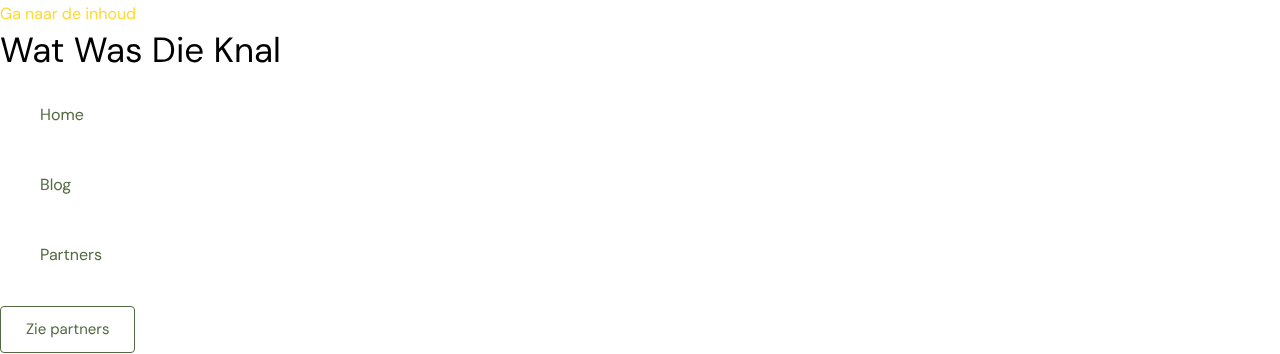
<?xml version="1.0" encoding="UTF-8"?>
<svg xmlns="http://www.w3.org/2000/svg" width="1280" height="354">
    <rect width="100%" height="100%" fill="#FFFFFF"/>
    <text x="0" y="19" font-family="DM Sans" font-size="16" fill="#FFD936">Ga naar de inhoud</text>
    <text x="0" y="62" font-family="DM Sans" font-size="35" fill="#000000">Wat Was Die Knal</text>
    <text x="40" y="120" font-family="DM Sans" font-size="16" fill="#536942">Home</text>
    <text x="40" y="190" font-family="DM Sans" font-size="16" fill="#536942">Blog</text>
    <text x="40" y="260" font-family="DM Sans" font-size="16" fill="#536942">Partners</text>
    <rect x="0.5" y="306.5" width="134" height="46" rx="3.5" fill="none" stroke="#536942"/>
    <text x="26" y="334" font-family="DM Sans" font-size="15" fill="#536942">Zie partners</text>
</svg>
